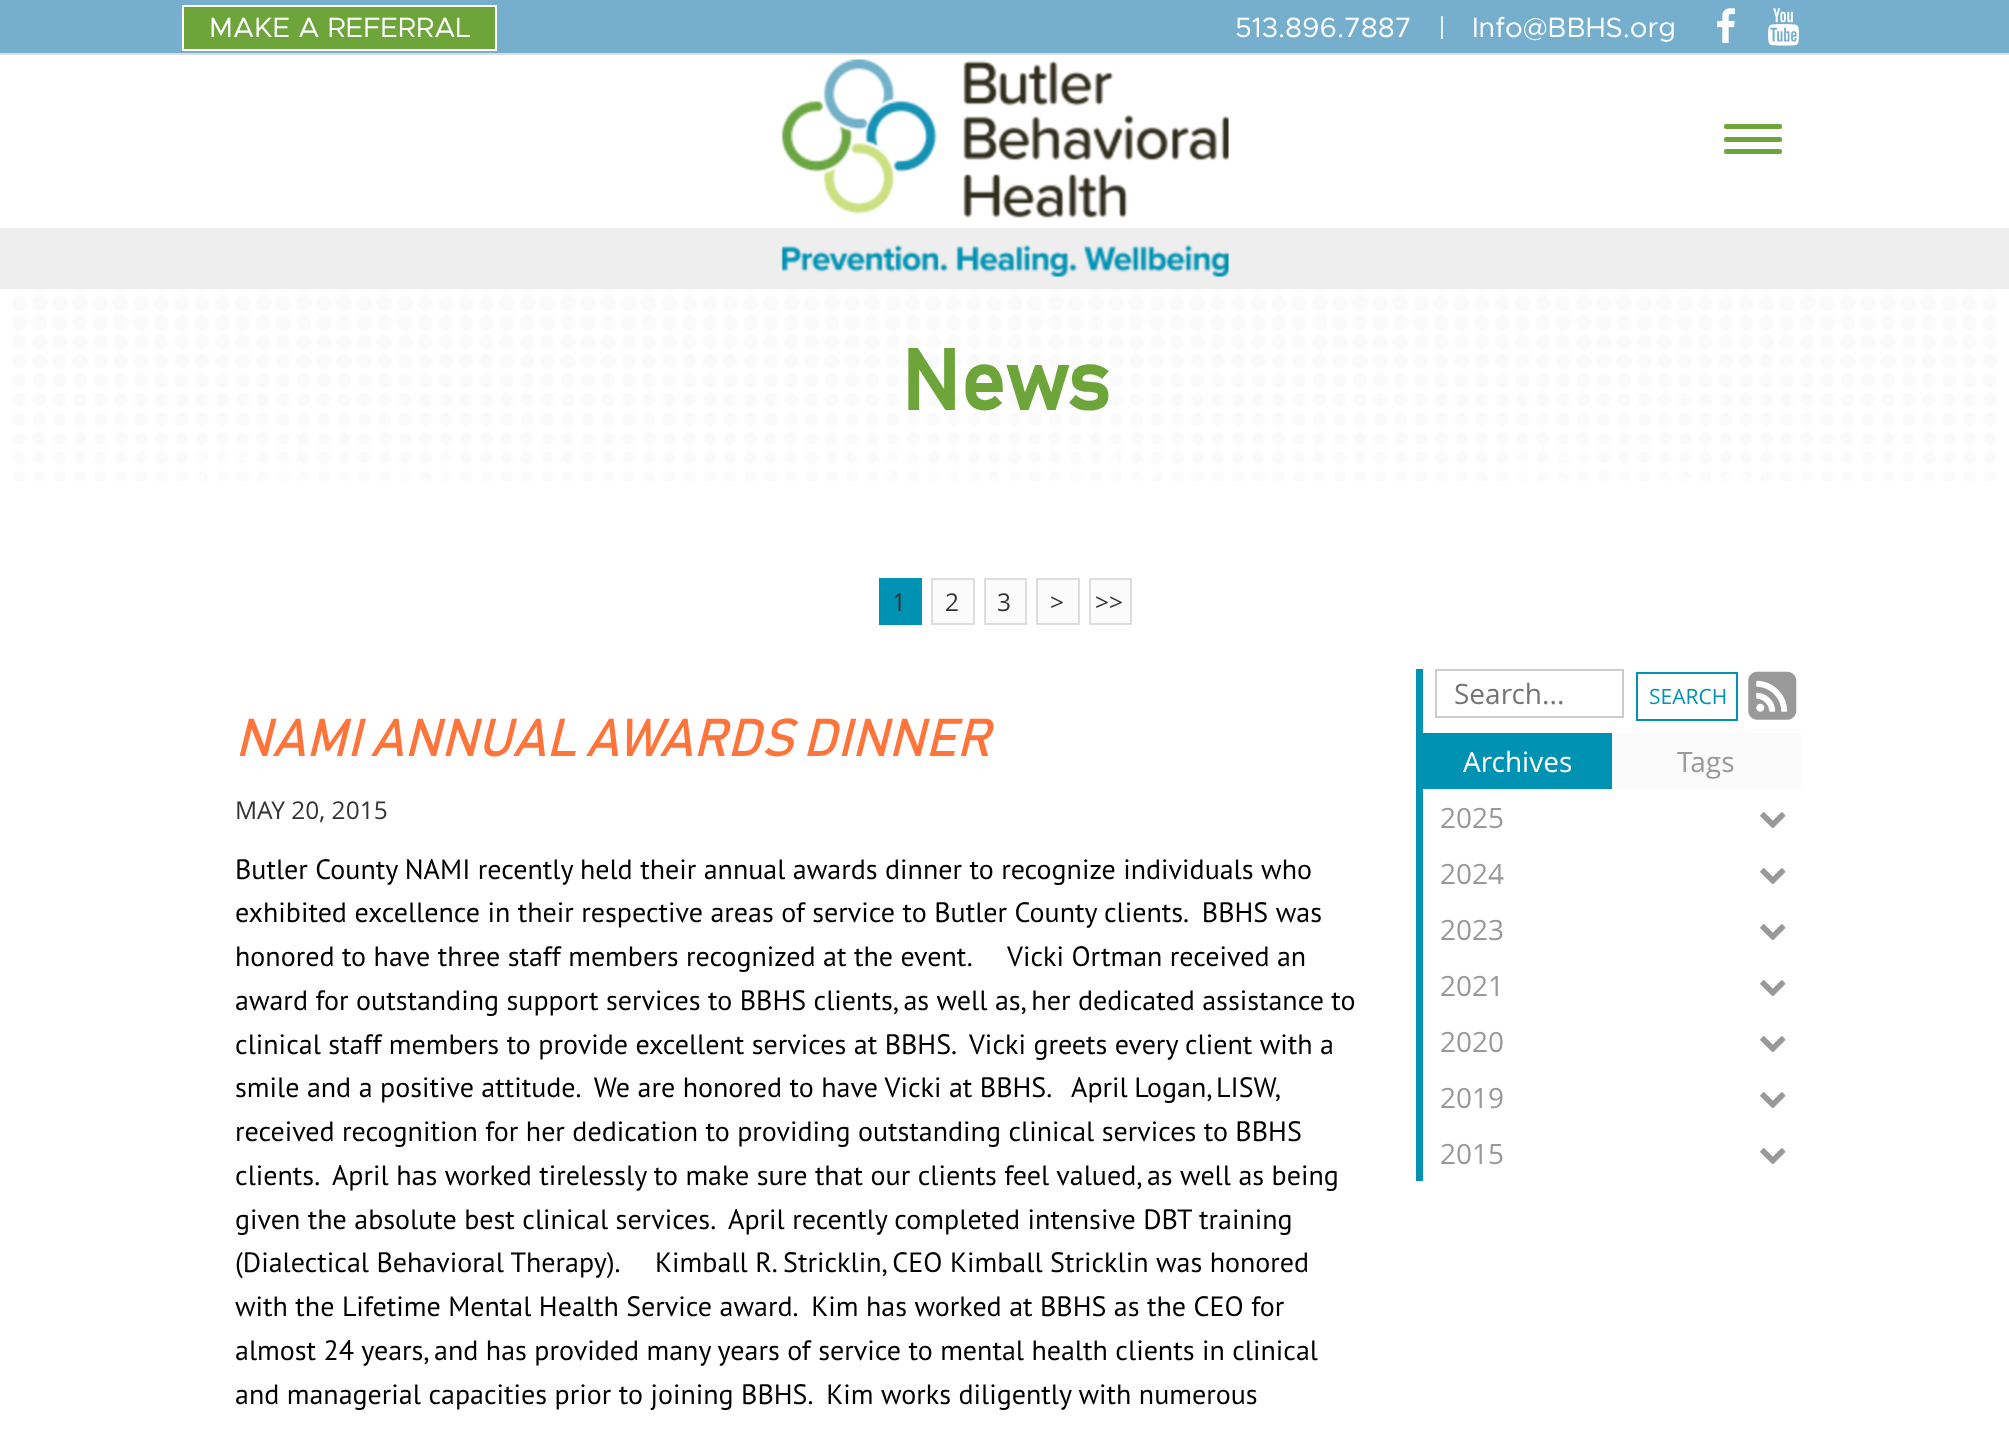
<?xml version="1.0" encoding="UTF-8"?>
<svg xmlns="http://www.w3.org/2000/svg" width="2009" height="1436">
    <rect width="100%" height="100%" fill="#FFFFFF"/>
    <rect x="0" y="0" width="2009" height="53" fill="#76AFCD"/>
    <rect x="183" y="6" width="313" height="44" fill="#6DA53A" stroke="#FFFFFF" stroke-width="2"/>
    <text x="209" y="37" font-family="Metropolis" font-size="28" fill="#FFFFFF">MAKE A REFERRAL</text>
    <text x="1235" y="37" font-family="Metropolis" font-size="28" fill="#FFFFFF">513.896.7887</text>
    <text x="1438" y="37" font-family="Metropolis" font-size="28" fill="#FFFFFF">|</text>
    <text x="1472" y="37" font-family="Metropolis" font-size="28" fill="#FFFFFF">Info@BBHS.org</text>
    <image x="1717" y="8" width="18" height="35" href="img_01.png"/>
    <image x="1768" y="8" width="31" height="38" href="img_02.png"/>
    <rect x="0" y="53" width="2009" height="2" fill="#DDDDDD"/>
    <rect x="0" y="228" width="2009" height="61" fill="#EEEEEE"/>
    <image x="781" y="59" width="448" height="218" href="img_03.png"/>
    <rect x="1724" y="124" width="58" height="5" rx="2" fill="#6DA53A"/>
    <rect x="1724" y="137" width="58" height="5" rx="2" fill="#6DA53A"/>
    <rect x="1724" y="149" width="58" height="5" rx="2" fill="#6DA53A"/>
    <image x="12" y="289" width="1985" height="192" href="img_04.png"/>
    <text x="901" y="410" font-family="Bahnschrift" font-size="84" font-weight="700" fill="#6DA53A">News</text>
    <rect x="879" y="578" width="43" height="47" fill="#0092B3"/>
    <text x="892" y="611" font-family="Open Sans" font-size="24.5" fill="#333333">1</text>
    <rect x="932" y="579" width="42" height="45" fill="#FBFBFB" stroke="#DDDDDD" stroke-width="2"/>
    <text x="945" y="611" font-family="Open Sans" font-size="24.5" fill="#333333">2</text>
    <rect x="985" y="579" width="41" height="45" fill="#FBFBFB" stroke="#DDDDDD" stroke-width="2"/>
    <text x="997" y="611" font-family="Open Sans" font-size="24.5" fill="#333333">3</text>
    <rect x="1037" y="579" width="42" height="45" fill="#FBFBFB" stroke="#DDDDDD" stroke-width="2"/>
    <text x="1050" y="611" font-family="Open Sans" font-size="24.5" fill="#333333">&gt;</text>
    <rect x="1090" y="579" width="41" height="45" fill="#FBFBFB" stroke="#DDDDDD" stroke-width="2"/>
    <text x="1095" y="611" font-family="Open Sans" font-size="24.5" fill="#333333">&gt;&gt;</text>
    <text x="235" y="756" font-family="Bahnschrift" font-size="52.5" font-style="italic" fill="#FF743B">NAMI ANNUAL AWARDS DINNER</text>
    <text x="235" y="819" font-family="Open Sans" font-size="24.5" fill="#333333">MAY 20, 2015</text>
    <text font-family="PT Sans" font-size="28" fill="#000000" xml:space="preserve"><tspan x="235" y="879">Butler County NAMI recently held their annual awards dinner to recognize individuals who</tspan><tspan x="235" y="922">exhibited excellence in their respective areas of service to Butler County clients.  BBHS was</tspan><tspan x="235" y="966">honored to have three staff members recognized at the event.</tspan></text>
    <text x="1007" y="966" font-family="PT Sans" font-size="28" fill="#000000">Vicki Ortman received an</text>
    <text font-family="PT Sans" font-size="28" fill="#000000" xml:space="preserve"><tspan x="235" y="1010">award for outstanding support services to BBHS clients, as well as, her dedicated assistance to</tspan><tspan x="235" y="1054">clinical staff members to provide excellent services at BBHS.  Vicki greets every client with a</tspan><tspan x="235" y="1097">smile and a positive attitude.  We are honored to have Vicki at BBHS.</tspan></text>
    <text x="1071" y="1097" word-spacing="-1" font-family="PT Sans" font-size="28" fill="#000000">April Logan, LISW,</text>
    <text font-family="PT Sans" font-size="28" fill="#000000" xml:space="preserve"><tspan x="235" y="1141">received recognition for her dedication to providing outstanding clinical services to BBHS</tspan><tspan x="235" y="1185">clients.  April has worked tirelessly to make sure that our clients feel valued, as well as being</tspan><tspan x="235" y="1229">given the absolute best clinical services.  April recently completed intensive DBT training</tspan><tspan x="235" y="1272">(Dialectical Behavioral Therapy).</tspan></text>
    <text x="655" y="1272" font-family="PT Sans" font-size="28" fill="#000000">Kimball R. Stricklin, CEO Kimball Stricklin was honored</text>
    <text font-family="PT Sans" font-size="28" fill="#000000" xml:space="preserve"><tspan x="235" y="1316">with the Lifetime Mental Health Service award.  Kim has worked at BBHS as the CEO for</tspan><tspan x="235" y="1360">almost 24 years, and has provided many years of service to mental health clients in clinical</tspan><tspan x="235" y="1404">and managerial capacities prior to joining BBHS.  Kim works diligently with numerous</tspan></text>
    <rect x="1416" y="669" width="7" height="512" fill="#0092B3"/>
    <rect x="1436" y="670" width="187" height="47" fill="none" stroke="#CCCCCC" stroke-width="2"/>
    <text x="1454" y="704" font-family="Open Sans" font-size="28" fill="#757575">Search...</text>
    <rect x="1637" y="673" width="100" height="47" fill="none" stroke="#0092B3" stroke-width="2"/>
    <text x="1649" y="704" font-family="Open Sans" font-size="21" fill="#0092B3">SEARCH</text>
    <image x="1748" y="671" width="49" height="49" href="img_05.png"/>
    <rect x="1612" y="733" width="189" height="56" fill="#FBFBFB"/>
    <rect x="1423" y="733" width="189" height="56" fill="#0092B3"/>
    <text x="1463" y="772" font-family="Open Sans" font-size="28" fill="#FFFFFF">Archives</text>
    <text x="1677" y="772" font-family="Open Sans" font-size="28" fill="#999999">Tags</text>
    <text x="1440" y="828" font-family="Open Sans" font-size="28" fill="#999999">2025</text>
    <image x="1760" y="812" width="26" height="17" href="img_06.png"/>
    <text x="1440" y="884" font-family="Open Sans" font-size="28" fill="#999999">2024</text>
    <image x="1760" y="868" width="26" height="17" href="img_06.png"/>
    <text x="1440" y="940" font-family="Open Sans" font-size="28" fill="#999999">2023</text>
    <image x="1760" y="924" width="26" height="17" href="img_06.png"/>
    <text x="1440" y="996" font-family="Open Sans" font-size="28" fill="#999999">2021</text>
    <image x="1760" y="980" width="26" height="17" href="img_06.png"/>
    <text x="1440" y="1052" font-family="Open Sans" font-size="28" fill="#999999">2020</text>
    <image x="1760" y="1036" width="26" height="17" href="img_06.png"/>
    <text x="1440" y="1108" font-family="Open Sans" font-size="28" fill="#999999">2019</text>
    <image x="1760" y="1092" width="26" height="17" href="img_06.png"/>
    <text x="1440" y="1164" font-family="Open Sans" font-size="28" fill="#999999">2015</text>
    <image x="1760" y="1148" width="26" height="17" href="img_06.png"/>
</svg>
